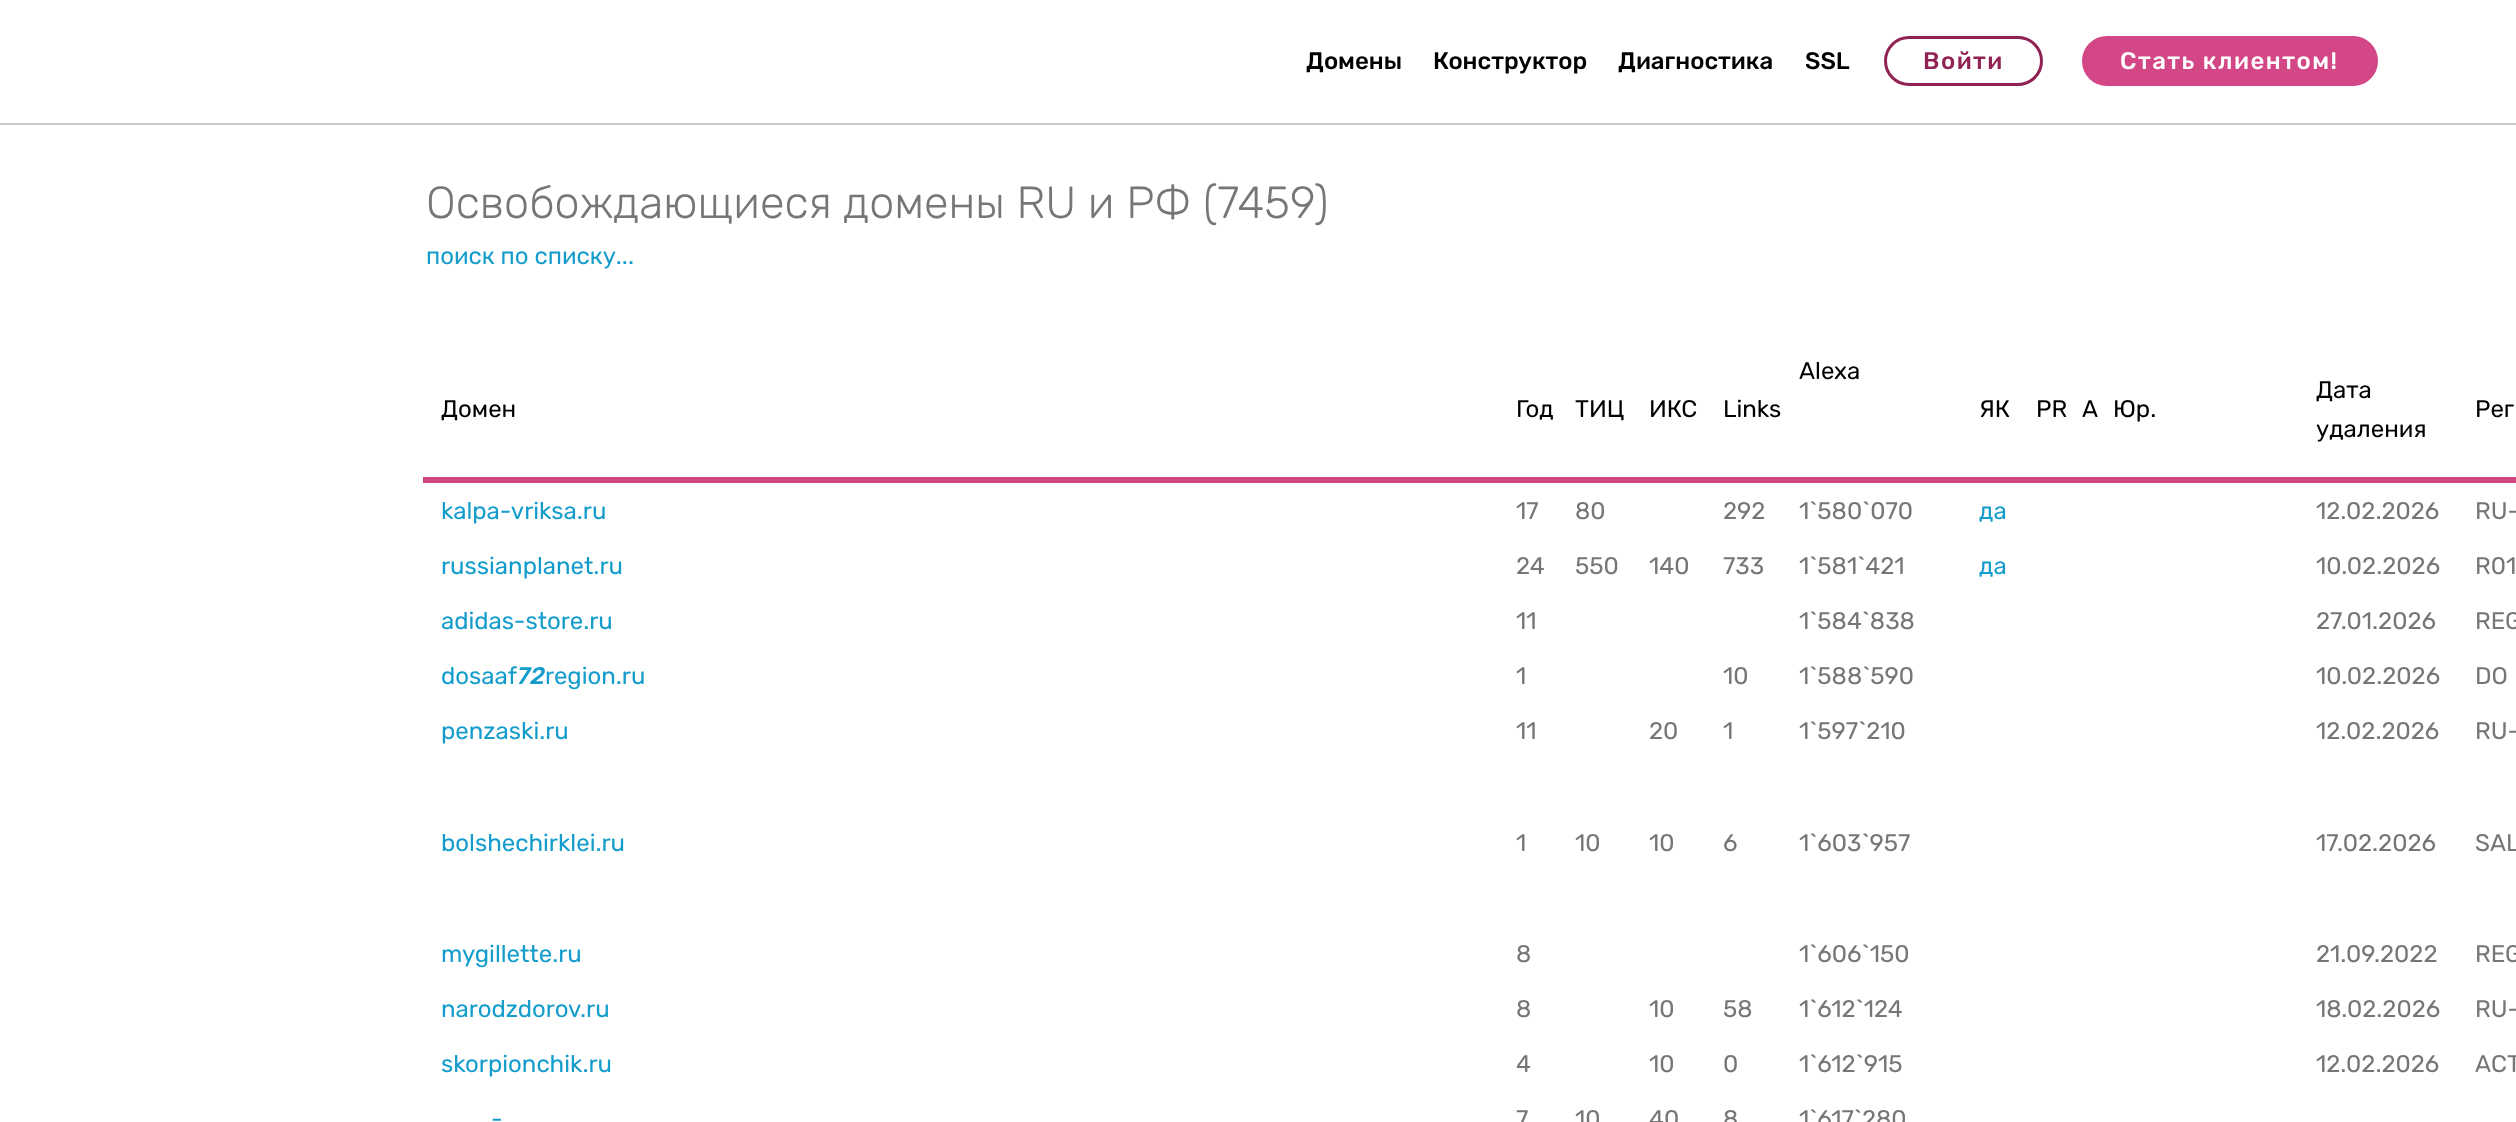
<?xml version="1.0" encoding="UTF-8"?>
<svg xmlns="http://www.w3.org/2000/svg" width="2516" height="1122">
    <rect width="100%" height="100%" fill="#FFFFFF"/>
    <rect x="0" y="123" width="2516" height="2" fill="#CCCCCC"/>
    <text x="1306" y="69" font-family="Rubik" font-size="24" font-weight="500" fill="#000000">Домены</text>
    <text x="1433" y="69" font-family="Rubik" font-size="24" font-weight="500" fill="#000000">Конструктор</text>
    <text x="1618" y="69" font-family="Rubik" font-size="24" font-weight="500" fill="#000000">Диагностика</text>
    <text x="1805" y="69" font-family="Rubik" font-size="24" font-weight="500" fill="#000000">SSL</text>
    <rect x="1885.5" y="37.5" width="156" height="47" rx="23.5" fill="none" stroke="#912354" stroke-width="3"/>
    <text x="1923" y="69" font-family="Rubik" font-size="24" font-weight="500" letter-spacing="1.5" fill="#912354">Войти</text>
    <rect x="2083.5" y="37.5" width="293" height="47" rx="23.5" fill="#D34786" stroke="#D34786" stroke-width="3"/>
    <text x="2120" y="69" font-family="Rubik" font-size="24" font-weight="500" letter-spacing="1.5" fill="#FFFFFF">Стать клиентом!</text>
    <text x="426" y="218" font-family="Rubik" font-size="44.9" font-weight="300" fill="#767676">Освобождающиеся домены RU и РФ (7459)</text>
    <text x="426" y="264" font-family="Rubik" font-size="24" fill="#149DCC">поиск по списку...</text>
    <text x="1799" y="379" font-family="Rubik" font-size="24" fill="#000000">Alexa</text>
    <text x="441" y="417" font-family="Rubik" font-size="24" fill="#000000">Домен</text>
    <text x="1516" y="417" font-family="Rubik" font-size="24" fill="#000000">Год</text>
    <text x="1575" y="417" font-family="Rubik" font-size="24" fill="#000000">ТИЦ</text>
    <text x="1649" y="417" font-family="Rubik" font-size="24" fill="#000000">ИКС</text>
    <text x="1723" y="417" font-family="Rubik" font-size="24" fill="#000000">Links</text>
    <text x="1979" y="417" font-family="Rubik" font-size="24" fill="#000000">ЯК</text>
    <text x="2036" y="417" font-family="Rubik" font-size="24" fill="#000000">PR</text>
    <text x="2082" y="417" font-family="Rubik" font-size="24" fill="#000000">A</text>
    <text x="2113" y="417" font-family="Rubik" font-size="24" fill="#000000">Юр.</text>
    <text font-family="Rubik" font-size="24" fill="#000000">
        <tspan x="2316" y="398">Дата</tspan>
        <tspan x="2316" y="437">удаления</tspan>
    </text>
    <rect x="423" y="477" width="2093" height="6" fill="#D34786"/>
    <text x="2475" y="417" font-family="Rubik" font-size="24" fill="#000000">Рег</text>
    <text x="441" y="519" font-family="Rubik" font-size="24" fill="#149DCC">kalpa-vriksa.ru</text>
    <text x="1516" y="519" font-family="Rubik" font-size="24" fill="#767676">17</text>
    <text x="1575" y="519" font-family="Rubik" font-size="24" fill="#767676">80</text>
    <text x="1723" y="519" font-family="Rubik" font-size="24" fill="#767676">292</text>
    <text x="1799" y="519" font-family="Rubik" font-size="24" fill="#767676">1`580`070</text>
    <text x="1979" y="519" font-family="Rubik" font-size="24" fill="#149DCC">да</text>
    <text x="2316" y="519" font-family="Rubik" font-size="24" fill="#767676">12.02.2026</text>
    <text x="2475" y="519" font-family="Rubik" font-size="24" fill="#767676">RU-</text>
    <text x="441" y="574" font-family="Rubik" font-size="24" fill="#149DCC">russianplanet.ru</text>
    <text x="1516" y="574" font-family="Rubik" font-size="24" fill="#767676">24</text>
    <text x="1575" y="574" font-family="Rubik" font-size="24" fill="#767676">550</text>
    <text x="1649" y="574" font-family="Rubik" font-size="24" fill="#767676">140</text>
    <text x="1723" y="574" font-family="Rubik" font-size="24" fill="#767676">733</text>
    <text x="1799" y="574" font-family="Rubik" font-size="24" fill="#767676">1`581`421</text>
    <text x="1979" y="574" font-family="Rubik" font-size="24" fill="#149DCC">да</text>
    <text x="2316" y="574" font-family="Rubik" font-size="24" fill="#767676">10.02.2026</text>
    <text x="2475" y="574" font-family="Rubik" font-size="24" fill="#767676">R01</text>
    <text x="441" y="629" font-family="Rubik" font-size="24" fill="#149DCC">adidas-store.ru</text>
    <text x="1516" y="629" font-family="Rubik" font-size="24" fill="#767676">11</text>
    <text x="1799" y="629" font-family="Rubik" font-size="24" fill="#767676">1`584`838</text>
    <text x="2316" y="629" font-family="Rubik" font-size="24" fill="#767676">27.01.2026</text>
    <text x="2475" y="629" font-family="Rubik" font-size="24" fill="#767676">REG</text>
    <text x="441" y="684" font-family="Rubik" font-size="24" fill="#149DCC">dosaaf</text>
    <text x="517" y="684" font-family="Rubik" font-size="24" font-weight="500" font-style="italic" fill="#149DCC">72</text>
    <text x="545" y="684" font-family="Rubik" font-size="24" fill="#149DCC">region.ru</text>
    <text x="1516" y="684" font-family="Rubik" font-size="24" fill="#767676">1</text>
    <text x="1723" y="684" font-family="Rubik" font-size="24" fill="#767676">10</text>
    <text x="1799" y="684" font-family="Rubik" font-size="24" fill="#767676">1`588`590</text>
    <text x="2316" y="684" font-family="Rubik" font-size="24" fill="#767676">10.02.2026</text>
    <text x="2475" y="684" font-family="Rubik" font-size="24" fill="#767676">DO</text>
    <text x="441" y="739" font-family="Rubik" font-size="24" fill="#149DCC">penzaski.ru</text>
    <text x="1516" y="739" font-family="Rubik" font-size="24" fill="#767676">11</text>
    <text x="1649" y="739" font-family="Rubik" font-size="24" fill="#767676">20</text>
    <text x="1723" y="739" font-family="Rubik" font-size="24" fill="#767676">1</text>
    <text x="1799" y="739" font-family="Rubik" font-size="24" fill="#767676">1`597`210</text>
    <text x="2316" y="739" font-family="Rubik" font-size="24" fill="#767676">12.02.2026</text>
    <text x="2475" y="739" font-family="Rubik" font-size="24" fill="#767676">RU-</text>
    <text x="441" y="851" font-family="Rubik" font-size="24" fill="#149DCC">bolshechirklei.ru</text>
    <text x="1516" y="851" font-family="Rubik" font-size="24" fill="#767676">1</text>
    <text x="1575" y="851" font-family="Rubik" font-size="24" fill="#767676">10</text>
    <text x="1649" y="851" font-family="Rubik" font-size="24" fill="#767676">10</text>
    <text x="1723" y="851" font-family="Rubik" font-size="24" fill="#767676">6</text>
    <text x="1799" y="851" font-family="Rubik" font-size="24" fill="#767676">1`603`957</text>
    <text x="2316" y="851" font-family="Rubik" font-size="24" fill="#767676">17.02.2026</text>
    <text x="2475" y="851" font-family="Rubik" font-size="24" fill="#767676">SAL</text>
    <text x="441" y="962" font-family="Rubik" font-size="24" fill="#149DCC">mygillette.ru</text>
    <text x="1516" y="962" font-family="Rubik" font-size="24" fill="#767676">8</text>
    <text x="1799" y="962" font-family="Rubik" font-size="24" fill="#767676">1`606`150</text>
    <text x="2316" y="962" font-family="Rubik" font-size="24" fill="#767676">21.09.2022</text>
    <text x="2475" y="962" font-family="Rubik" font-size="24" fill="#767676">REG</text>
    <text x="441" y="1017" font-family="Rubik" font-size="24" fill="#149DCC">narodzdorov.ru</text>
    <text x="1516" y="1017" font-family="Rubik" font-size="24" fill="#767676">8</text>
    <text x="1649" y="1017" font-family="Rubik" font-size="24" fill="#767676">10</text>
    <text x="1723" y="1017" font-family="Rubik" font-size="24" fill="#767676">58</text>
    <text x="1799" y="1017" font-family="Rubik" font-size="24" fill="#767676">1`612`124</text>
    <text x="2316" y="1017" font-family="Rubik" font-size="24" fill="#767676">18.02.2026</text>
    <text x="2475" y="1017" font-family="Rubik" font-size="24" fill="#767676">RU-</text>
    <text x="441" y="1072" font-family="Rubik" font-size="24" fill="#149DCC">skorpionchik.ru</text>
    <text x="1516" y="1072" font-family="Rubik" font-size="24" fill="#767676">4</text>
    <text x="1649" y="1072" font-family="Rubik" font-size="24" fill="#767676">10</text>
    <text x="1723" y="1072" font-family="Rubik" font-size="24" fill="#767676">0</text>
    <text x="1799" y="1072" font-family="Rubik" font-size="24" fill="#767676">1`612`915</text>
    <text x="2316" y="1072" font-family="Rubik" font-size="24" fill="#767676">12.02.2026</text>
    <text x="2475" y="1072" font-family="Rubik" font-size="24" fill="#767676">ACT</text>
    <text x="491" y="1127" font-family="Rubik" font-size="24" fill="#149DCC">-</text>
    <text x="1516" y="1127" font-family="Rubik" font-size="24" fill="#767676">7</text>
    <text x="1575" y="1127" font-family="Rubik" font-size="24" fill="#767676">10</text>
    <text x="1649" y="1127" font-family="Rubik" font-size="24" fill="#767676">40</text>
    <text x="1723" y="1127" font-family="Rubik" font-size="24" fill="#767676">8</text>
    <text x="1799" y="1127" font-family="Rubik" font-size="24" fill="#767676">1`617`280</text>
</svg>
